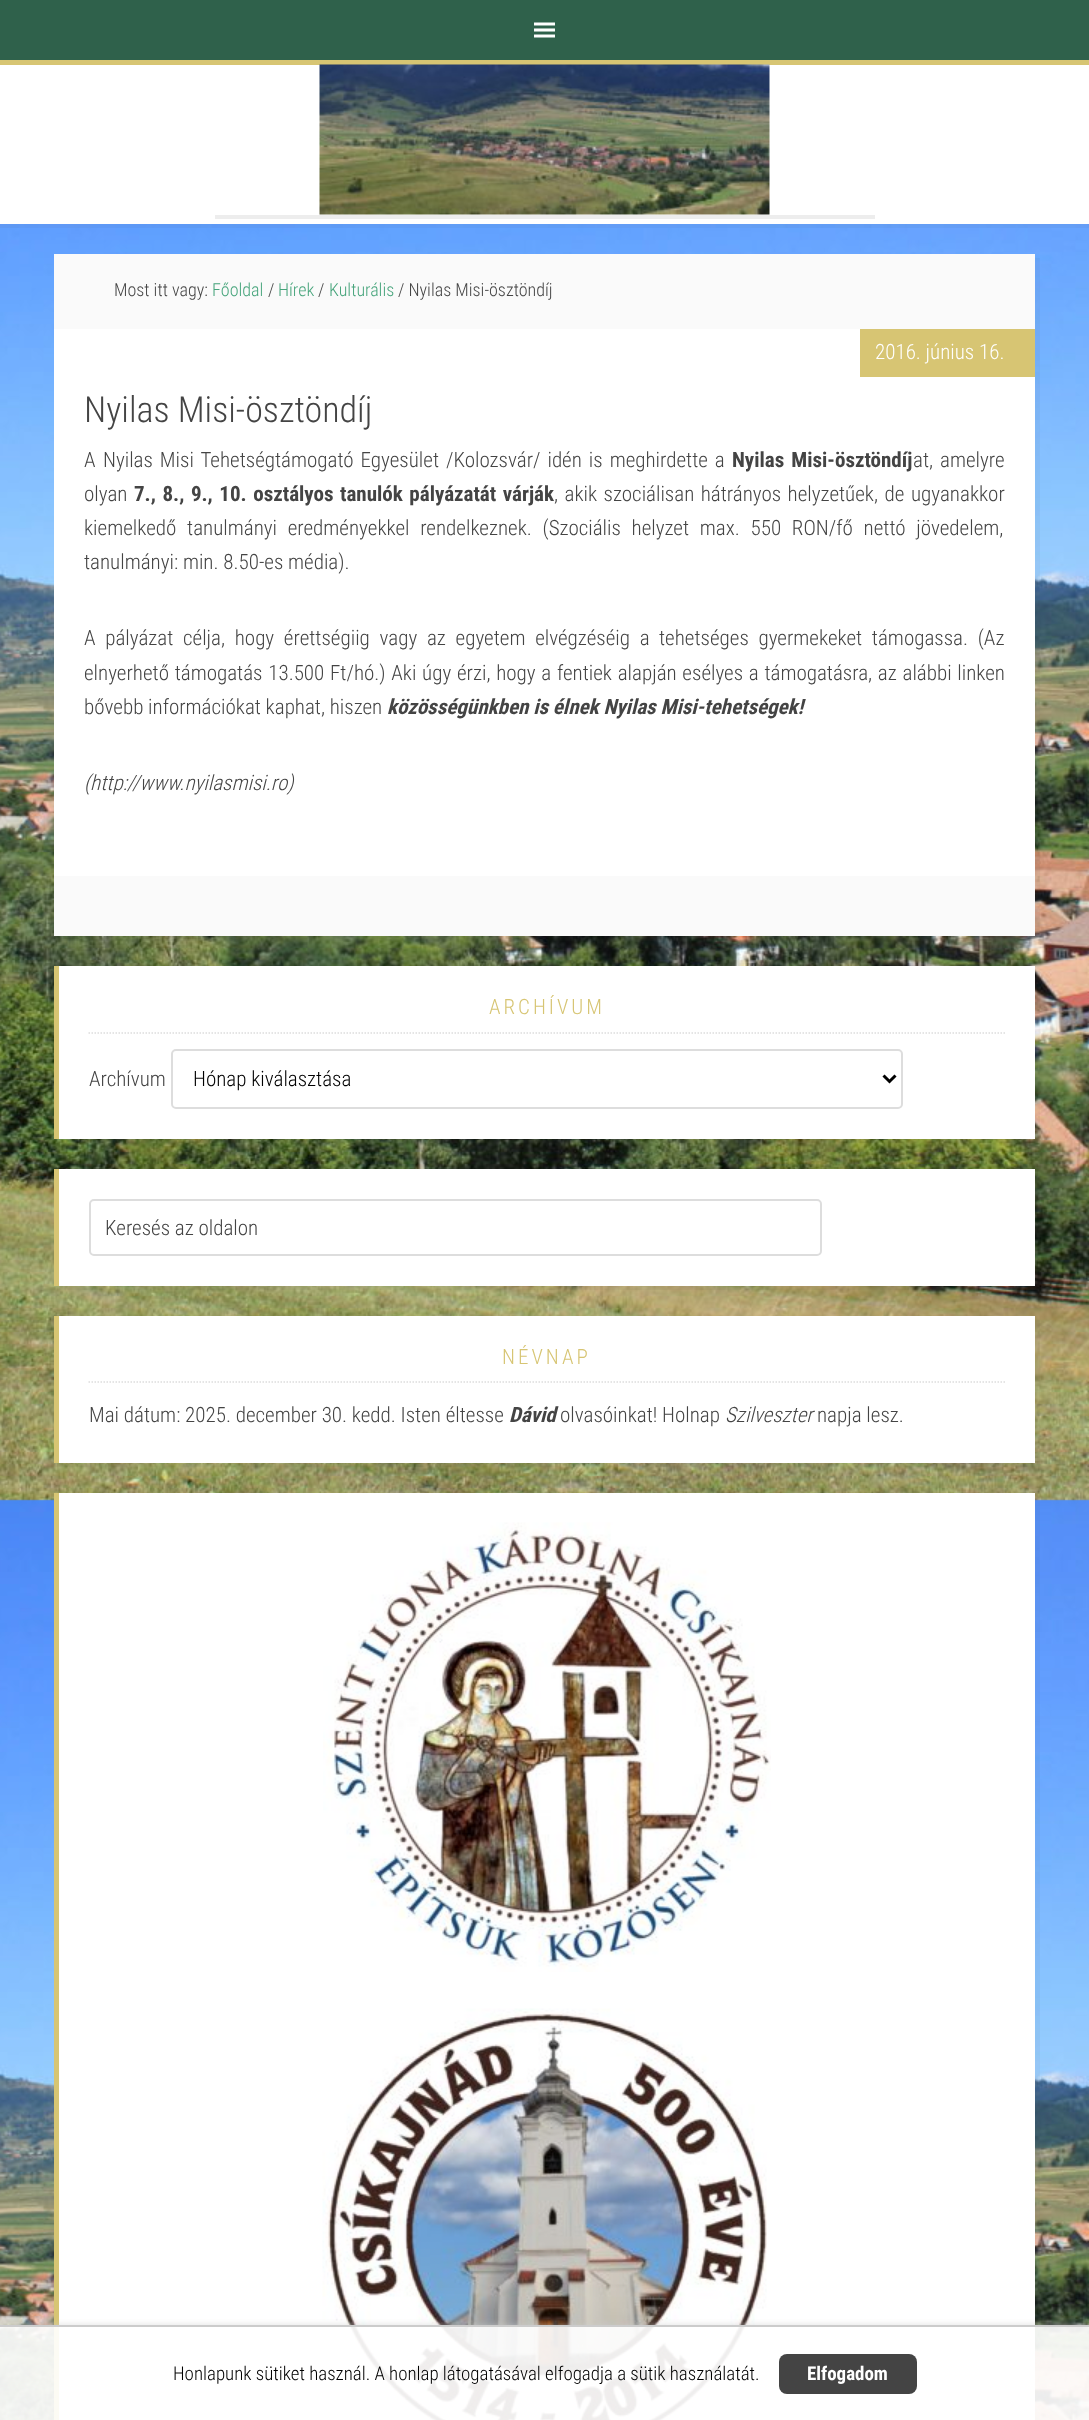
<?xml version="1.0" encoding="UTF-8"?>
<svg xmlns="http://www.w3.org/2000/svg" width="1089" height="2420">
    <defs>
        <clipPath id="clip1"><rect x="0" y="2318" width="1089" height="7"/></clipPath>
        <filter id="blur1" x="-50%" y="-200%" width="200%" height="500%"><feGaussianBlur stdDeviation="4.5"/></filter>
    </defs>
    <rect width="100%" height="100%" fill="#FFFFFF"/>
    <image x="0" y="224" width="1089" height="2196" href="img_01.png"/>
    <rect x="0" y="0" width="1089" height="60" fill="#2F614B"/>
    <image x="534" y="22" width="21" height="16" href="img_02.png"/>
    <rect x="0" y="224" width="1089" height="4" fill="#464646" fill-opacity="0.05"/>
    <rect x="0" y="60" width="1089" height="5" fill="#D7C573"/>
    <path d="M 215 214 V 219 H 875 V 69 H 874 V 214 Z" fill="#EDEDED"/>
    <rect x="215" y="69" width="660" height="146" fill="#FFFFFF"/>
    <image x="319" y="64" width="451" height="151" href="img_03.png"/>
    <path d="M 59 328 V 333 H 1040 V 258 H 1035 V 328 Z" fill="#464646" fill-opacity="0.05"/>
    <rect x="54" y="254" width="981" height="75" fill="#FAFAFA"/>
    <text x="114" y="296" font-family="Roboto Condensed" font-size="18" font-weight="300" fill="#444444">Most itt vagy:</text>
    <text x="212" y="296" font-family="Roboto Condensed" font-size="18" font-weight="300" fill="#46A47B">Főoldal</text>
    <text x="268" y="296" font-family="Roboto Condensed" font-size="18" font-weight="300" fill="#444444">/</text>
    <text x="278" y="296" font-family="Roboto Condensed" font-size="18" font-weight="300" fill="#46A47B">Hírek</text>
    <text x="318" y="296" font-family="Roboto Condensed" font-size="18" font-weight="300" fill="#444444">/</text>
    <text x="329" y="296" font-family="Roboto Condensed" font-size="18" font-weight="300" fill="#46A47B">Kulturális</text>
    <text x="398" y="296" font-family="Roboto Condensed" font-size="18" font-weight="300" fill="#444444">/ Nyilas Misi-ösztöndíj</text>
    <path d="M 59 936 V 941 H 1040 V 333 H 1035 V 936 Z" fill="#464646" fill-opacity="0.05"/>
    <rect x="54" y="329" width="981" height="547" fill="#FFFFFF"/>
    <rect x="860" y="329" width="175" height="48" fill="#D7C573"/>
    <text x="875" y="359" font-family="Roboto Condensed" font-size="21" font-weight="300" fill="#FFFFFF">2016. június 16.</text>
    <text x="84" y="422" font-family="Roboto Condensed" font-size="36" font-weight="300" fill="#444444">Nyilas Misi-ösztöndíj</text>
    <text x="84" y="467" font-family="Roboto Condensed" font-size="21" font-weight="300" fill="#444444">A</text>
    <text x="103" y="467" word-spacing="2.25" font-family="Roboto Condensed" font-size="21" font-weight="300" fill="#444444">Nyilas Misi Tehetségtámogató Egyesület /Kolozsvár/ idén is meghirdette a</text>
    <text x="732" y="467" word-spacing="2.25" font-family="Roboto Condensed" font-size="21" font-weight="700" fill="#444444">Nyilas Misi-ösztöndíj</text>
    <text x="913" y="467" word-spacing="2.25" font-family="Roboto Condensed" font-size="21" font-weight="300" fill="#444444">at, amelyre</text>
    <text x="84" y="501" font-family="Roboto Condensed" font-size="21" font-weight="300" fill="#444444">olyan</text>
    <text x="134" y="501" word-spacing="1.75" font-family="Roboto Condensed" font-size="21" font-weight="700" fill="#444444">7., 8., 9., 10. osztályos</text>
    <text x="340" y="501" word-spacing="1.75" font-family="Roboto Condensed" font-size="21" font-weight="700" fill="#444444">tanulók pályázatát várják</text>
    <text x="554" y="501" word-spacing="1.75" font-family="Roboto Condensed" font-size="21" font-weight="300" fill="#444444">, akik szociálisan hátrányos helyzetűek, de</text>
    <text x="911" y="501" font-family="Roboto Condensed" font-size="21" font-weight="300" fill="#444444">ugyanakkor</text>
    <text font-family="Roboto Condensed" font-size="21" font-weight="300" fill="#444444">
        <tspan x="84" y="535" word-spacing="6">kiemelkedő tanulmányi eredményekkel rendelkeznek. (Szociális helyzet max. 550 RON/fő nettó jövedelem,</tspan>
        <tspan x="84" y="569">tanulmányi: min. 8.50-es média).</tspan>
    </text>
    <text x="84" y="645" word-spacing="5" font-family="Roboto Condensed" font-size="21" font-weight="300" fill="#444444">A pályázat</text>
    <text x="183" y="645" word-spacing="5" font-family="Roboto Condensed" font-size="21" font-weight="300" fill="#444444">célja, hogy érettségiig vagy az egyetem elvégzéséig a</text>
    <text x="659" y="645" word-spacing="5" font-family="Roboto Condensed" font-size="21" font-weight="300" fill="#444444">tehetséges gyermekeket támogassa. (Az</text>
    <text font-family="Roboto Condensed" font-size="21" font-weight="300" fill="#444444">
        <tspan x="84" y="680" word-spacing="1">elnyerhető támogatás 13.500 Ft/hó.) Aki úgy érzi, hogy a fentiek alapján esélyes a támogatásra, az alábbi linken</tspan>
        <tspan x="84" y="714">bővebb információkat kaphat, hiszen</tspan>
    </text>
    <text x="387" y="714" font-family="Roboto Condensed" font-size="21" font-weight="700" font-style="italic" fill="#444444">közösségünkben is élnek Nyilas Misi-tehetségek!</text>
    <text x="84" y="790" font-family="Roboto Condensed" font-size="21" font-weight="300" font-style="italic" fill="#444444">(http://www.nyilasmisi.ro)</text>
    <rect x="54" y="876" width="981" height="60" fill="#FAFAFA"/>
    <path d="M 59 1138 V 1143 H 1040 V 971 H 1035 V 1138 Z" fill="#464646" fill-opacity="0.05"/>
    <rect x="59" y="966" width="976" height="173" fill="#FFFFFF"/>
    <rect x="54" y="966" width="5" height="173" fill="#D7C573"/>
    <path d="M 88.5 1033 H 1005" fill="none" stroke="#DDDDDD" stroke-width="1.5" stroke-dasharray="1.5 1.5"/>
    <text x="489" y="1014" font-family="Roboto Condensed" font-size="21" font-weight="300" letter-spacing="3" fill="#D7C573">ARCHÍVUM</text>
    <text x="89" y="1086" font-family="Roboto Condensed" font-size="21" font-weight="300" fill="#444444">Archívum</text>
    <rect x="172" y="1050" width="730" height="58" rx="4" fill="none" stroke="#DDDDDD" stroke-width="2"/>
    <path d="M 883.5 1075.5 L 889.5 1081.5 L 895.5 1075.5" fill="none" stroke="#000000" stroke-width="3"/>
    <text x="193" y="1086" font-family="Roboto Condensed" font-size="21" font-weight="300" fill="#000000">Hónap kiválasztása</text>
    <path d="M 59 1286 V 1290 H 1040 V 1173 H 1035 V 1286 Z" fill="#464646" fill-opacity="0.05"/>
    <rect x="59" y="1169" width="976" height="117" fill="#FFFFFF"/>
    <rect x="54" y="1169" width="5" height="117" fill="#D7C573"/>
    <rect x="90" y="1200" width="731" height="55" rx="4" fill="none" stroke="#DDDDDD" stroke-width="2"/>
    <text x="105" y="1235" font-family="Roboto Condensed" font-size="21" font-weight="300" fill="#444444">Keresés az oldalon</text>
    <path d="M 59 1462 V 1467 H 1040 V 1320 H 1035 V 1462 Z" fill="#464646" fill-opacity="0.05"/>
    <rect x="59" y="1316" width="976" height="147" fill="#FFFFFF"/>
    <rect x="54" y="1316" width="5" height="147" fill="#D7C573"/>
    <path d="M 88.5 1382 H 1005" fill="none" stroke="#DDDDDD" stroke-width="1.5" stroke-dasharray="1.5 1.5"/>
    <text x="502" y="1364" font-family="Roboto Condensed" font-size="21" font-weight="300" letter-spacing="3" fill="#D7C573">NÉVNAP</text>
    <text x="89" y="1422" font-family="Roboto Condensed" font-size="21" font-weight="300" fill="#444444">Mai dátum: 2025. december 30. kedd. Isten éltesse</text>
    <text x="509" y="1422" font-family="Roboto Condensed" font-size="21" font-weight="700" font-style="italic" fill="#444444">Dávid</text>
    <text x="560" y="1422" font-family="Roboto Condensed" font-size="21" font-weight="300" fill="#444444">olvasóinkat! Holnap</text>
    <text x="725" y="1422" font-family="Roboto Condensed" font-size="21" font-weight="300" font-style="italic" fill="#444444">Szilveszter</text>
    <text x="817" y="1422" font-family="Roboto Condensed" font-size="21" font-weight="300" fill="#444444">napja lesz.</text>
    <path d="M 59 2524 V 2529 H 1040 V 1497 H 1035 V 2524 Z" fill="#464646" fill-opacity="0.05"/>
    <rect x="59" y="1493" width="976" height="927" fill="#FFFFFF"/>
    <rect x="54" y="1493" width="5" height="927" fill="#D7C573"/>
    <image x="323" y="1522" width="448" height="450" href="img_04.png"/>
    <image x="322" y="2008" width="445" height="412" href="img_05.png"/>
    <g clip-path="url(#clip1)">
        <rect x="2" y="2327" width="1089" height="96" fill="#CCCCCC" filter="url(#blur1)"/>
    </g>
    <rect x="0" y="2327" width="1089" height="93" fill="#FFFFFF" fill-opacity="0.92"/>
    <rect x="0" y="2325" width="1089" height="2" fill="#CCCCCC"/>
    <text x="173" y="2380" font-family="Roboto Condensed" font-size="18.9" font-weight="300" fill="#000000">Honlapunk sütiket használ. A honlap látogatásával elfogadja a sütik használatát.</text>
    <rect x="779" y="2354" width="138" height="40" rx="8" fill="#444444"/>
    <text x="807" y="2380" font-family="Roboto Condensed" font-size="18.9" font-weight="700" fill="#FFFFFF">Elfogadom</text>
</svg>
